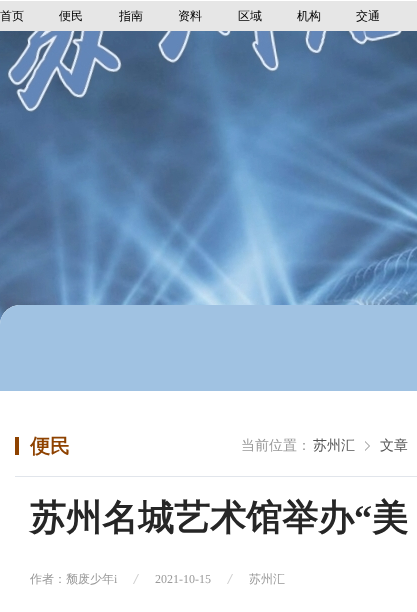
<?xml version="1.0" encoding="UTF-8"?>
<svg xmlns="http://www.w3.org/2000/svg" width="417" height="612">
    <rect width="100%" height="100%" fill="#FFFFFF"/>
    <image x="0" y="31" width="417" height="294" href="img_01.png"/>
    <rect x="0" y="1" width="417" height="30" fill="#E6E6E6"/>
    <text x="0" y="20" font-family="WenQuanYi Zen Hei" font-size="12" font-weight="500" fill="#000000">首页</text>
    <text x="59" y="20" font-family="WenQuanYi Zen Hei" font-size="12" font-weight="500" fill="#000000">便民</text>
    <text x="119" y="20" font-family="WenQuanYi Zen Hei" font-size="12" font-weight="500" fill="#000000">指南</text>
    <text x="178" y="20" font-family="WenQuanYi Zen Hei" font-size="12" font-weight="500" fill="#000000">资料</text>
    <text x="238" y="20" font-family="WenQuanYi Zen Hei" font-size="12" font-weight="500" fill="#000000">区域</text>
    <text x="297" y="20" font-family="WenQuanYi Zen Hei" font-size="12" font-weight="500" fill="#000000">机构</text>
    <text x="356" y="20" font-family="WenQuanYi Zen Hei" font-size="12" font-weight="500" fill="#000000">交通</text>
    <path d="M 20 305 H 417 C 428 305 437 314 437 325 V 411 H 0 V 325 C 0 314 9 305 20 305 Z" fill="#FFFFFF"/>
    <path d="M 20 305 H 417 C 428 305 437 314 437 325 V 391 H 0 V 325 C 0 314 9 305 20 305 Z" fill="#A0C2E2"/>
    <rect x="15" y="476" width="402" height="1" fill="#E1E5EB"/>
    <rect x="15" y="437" width="4" height="18" fill="#8E4200"/>
    <text x="30" y="453" font-family="WenQuanYi Zen Hei" font-size="20" font-weight="700" fill="#8E4200">便民</text>
    <text x="241" y="450" font-family="WenQuanYi Zen Hei" font-size="14" font-weight="500" fill="#999999">当前位置：</text>
    <image x="365" y="441" width="5" height="10" href="img_02.png"/>
    <text x="313" y="450" font-family="WenQuanYi Zen Hei" font-size="14" font-weight="500" fill="#565656">苏州汇</text>
    <text x="380" y="450" font-family="WenQuanYi Zen Hei" font-size="14" font-weight="500" fill="#565656">文章</text>
    <text x="30" y="530" font-family="WenQuanYi Zen Hei" font-size="36" font-weight="700" fill="#262626">苏州名城艺术馆举办</text>
    <text x="354" y="530" font-family="Liberation Serif" font-size="36" font-weight="700" fill="#262626">“</text>
    <text x="372" y="530" font-family="WenQuanYi Zen Hei" font-size="36" font-weight="700" fill="#262626">美</text>
    <text x="30" y="583" font-family="WenQuanYi Zen Hei" font-size="12" font-weight="500" fill="#999999">作者：颓废少年</text>
    <text x="114" y="583" font-family="Liberation Serif" font-size="12" fill="#999999">i</text>
    <image x="133" y="574" width="6" height="10" href="img_03.png"/>
    <text x="155" y="583" font-family="Liberation Serif" font-size="12" fill="#999999">2021-10-15</text>
    <image x="227" y="574" width="6" height="10" href="img_03.png"/>
    <text x="249" y="583" font-family="WenQuanYi Zen Hei" font-size="12" font-weight="500" fill="#999999">苏州汇</text>
</svg>
